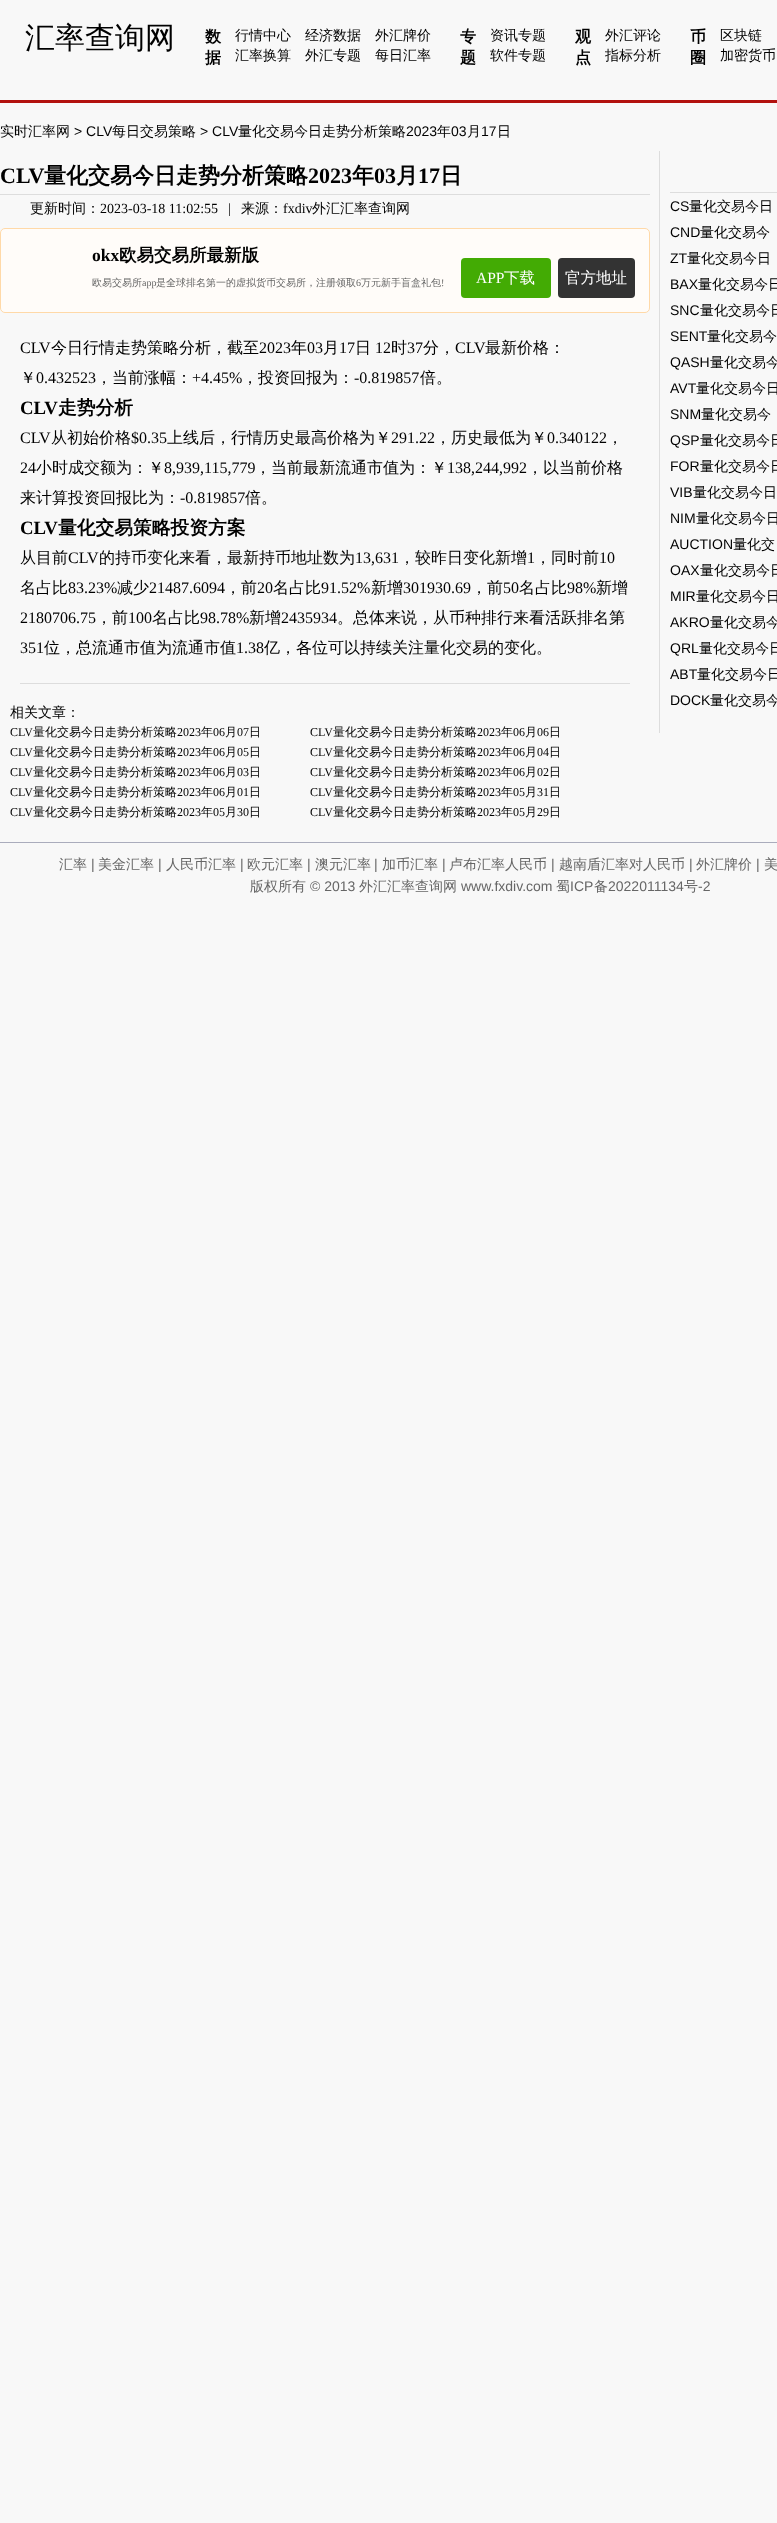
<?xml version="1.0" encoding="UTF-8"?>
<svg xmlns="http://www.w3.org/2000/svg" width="777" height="2523">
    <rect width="100%" height="100%" fill="#F8F8F8"/>
    <rect x="0" y="100" width="777" height="3" fill="#B2110E"/>
    <text x="25" y="48" font-family="WenQuanYi Zen Hei" font-size="30" font-weight="500" fill="#000000">汇率查询网</text>
    <text font-family="WenQuanYi Zen Hei" font-size="16" font-weight="700" fill="#000000">
        <tspan x="205" y="42">数</tspan>
        <tspan x="205" y="63">据</tspan>
    </text>
    <text x="235" y="40" font-family="WenQuanYi Zen Hei" font-size="14" font-weight="500" fill="#000000">行情中心</text>
    <text x="305" y="40" font-family="WenQuanYi Zen Hei" font-size="14" font-weight="500" fill="#000000">经济数据</text>
    <text x="375" y="40" font-family="WenQuanYi Zen Hei" font-size="14" font-weight="500" fill="#000000">外汇牌价</text>
    <text x="235" y="60" font-family="WenQuanYi Zen Hei" font-size="14" font-weight="500" fill="#000000">汇率换算</text>
    <text x="305" y="60" font-family="WenQuanYi Zen Hei" font-size="14" font-weight="500" fill="#000000">外汇专题</text>
    <text x="375" y="60" font-family="WenQuanYi Zen Hei" font-size="14" font-weight="500" fill="#000000">每日汇率</text>
    <text font-family="WenQuanYi Zen Hei" font-size="16" font-weight="700" fill="#000000">
        <tspan x="460" y="42">专</tspan>
        <tspan x="460" y="63">题</tspan>
    </text>
    <text font-family="WenQuanYi Zen Hei" font-size="14" font-weight="500" fill="#000000">
        <tspan x="490" y="40">资讯专题</tspan>
        <tspan x="490" y="60">软件专题</tspan>
    </text>
    <text font-family="WenQuanYi Zen Hei" font-size="16" font-weight="700" fill="#000000">
        <tspan x="575" y="42">观</tspan>
        <tspan x="575" y="63">点</tspan>
    </text>
    <text font-family="WenQuanYi Zen Hei" font-size="14" font-weight="500" fill="#000000">
        <tspan x="605" y="40">外汇评论</tspan>
        <tspan x="605" y="60">指标分析</tspan>
    </text>
    <text font-family="WenQuanYi Zen Hei" font-size="16" font-weight="700" fill="#000000">
        <tspan x="690" y="42">币</tspan>
        <tspan x="690" y="63">圈</tspan>
    </text>
    <text font-family="WenQuanYi Zen Hei" font-size="14" font-weight="500" fill="#000000">
        <tspan x="720" y="40">区块链</tspan>
        <tspan x="720" y="60">加密货币</tspan>
    </text>
    <text x="0" y="136" font-family="WenQuanYi Zen Hei" font-size="14" font-weight="500" fill="#000000">实时汇率网</text>
    <text x="74" y="136" font-family="Liberation Sans" font-size="14" fill="#000000">&gt; CLV</text>
    <text x="112" y="136" font-family="WenQuanYi Zen Hei" font-size="14" font-weight="500" fill="#000000">每日交易策略</text>
    <text x="200" y="136" font-family="Liberation Sans" font-size="14" fill="#000000">&gt; CLV</text>
    <text x="238" y="136" font-family="WenQuanYi Zen Hei" font-size="14" font-weight="500" fill="#000000">量化交易今日走势分析策略</text>
    <text x="406" y="136" font-family="Liberation Sans" font-size="14" fill="#000000">2023</text>
    <text x="437" y="136" font-family="WenQuanYi Zen Hei" font-size="14" font-weight="500" fill="#000000">年</text>
    <text x="451" y="136" font-family="Liberation Sans" font-size="14" fill="#000000">03</text>
    <text x="467" y="136" font-family="WenQuanYi Zen Hei" font-size="14" font-weight="500" fill="#000000">月</text>
    <text x="481" y="136" font-family="Liberation Sans" font-size="14" fill="#000000">17</text>
    <text x="497" y="136" font-family="WenQuanYi Zen Hei" font-size="14" font-weight="500" fill="#000000">日</text>
    <text x="0" y="183" font-family="Liberation Serif" font-size="22" font-weight="700" fill="#000000">CLV</text>
    <text x="44" y="183" font-family="WenQuanYi Zen Hei" font-size="22" font-weight="700" fill="#000000">量化交易今日走势分析策略</text>
    <text x="308" y="183" font-family="Liberation Serif" font-size="22" font-weight="700" fill="#000000">2023</text>
    <text x="352" y="183" font-family="WenQuanYi Zen Hei" font-size="22" font-weight="700" fill="#000000">年</text>
    <text x="374" y="183" font-family="Liberation Serif" font-size="22" font-weight="700" fill="#000000">03</text>
    <text x="396" y="183" font-family="WenQuanYi Zen Hei" font-size="22" font-weight="700" fill="#000000">月</text>
    <text x="418" y="183" font-family="Liberation Serif" font-size="22" font-weight="700" fill="#000000">17</text>
    <text x="440" y="183" font-family="WenQuanYi Zen Hei" font-size="22" font-weight="700" fill="#000000">日</text>
    <rect x="0" y="194" width="650" height="1" fill="#DDDDDD"/>
    <text x="30" y="213" font-family="WenQuanYi Zen Hei" font-size="14" font-weight="500" fill="#000000">更新时间：</text>
    <text x="100" y="213" font-family="Liberation Serif" font-size="14" fill="#000000">2023-03-18 11:02:55</text>
    <text x="228" y="213" font-family="Liberation Serif" font-size="14" fill="#000000">|</text>
    <text x="241" y="213" font-family="WenQuanYi Zen Hei" font-size="14" font-weight="500" fill="#000000">来源：</text>
    <text x="283" y="213" font-family="Liberation Serif" font-size="14" fill="#000000">fxdiv</text>
    <text x="312" y="213" font-family="WenQuanYi Zen Hei" font-size="14" font-weight="500" fill="#000000">外汇汇率查询网</text>
    <rect x="0.5" y="228.5" width="649" height="84" rx="4.5" fill="#FFFCF9" stroke="#FFD9A8"/>
    <text x="92" y="261" font-family="Liberation Serif" font-size="17.5" font-weight="700" fill="#000000">okx</text>
    <text x="119" y="261" font-family="WenQuanYi Zen Hei" font-size="17.5" font-weight="700" fill="#000000">欧易交易所最新版</text>
    <text x="92" y="286" font-family="WenQuanYi Zen Hei" font-size="10" font-weight="500" fill="#666666">欧易交易所</text>
    <text x="142" y="286" font-family="Liberation Serif" font-size="10" fill="#666666">app</text>
    <text x="156" y="286" font-family="WenQuanYi Zen Hei" font-size="10" font-weight="500" fill="#666666">是全球排名第一的虚拟货币交易所，注册领取</text>
    <text x="356" y="286" font-family="Liberation Serif" font-size="10" fill="#666666">6</text>
    <text x="361" y="286" font-family="WenQuanYi Zen Hei" font-size="10" font-weight="500" fill="#666666">万元新手盲盒礼包</text>
    <text x="441" y="286" font-family="Liberation Serif" font-size="10" fill="#666666">!</text>
    <rect x="461" y="258" width="90" height="40" rx="4" fill="#43AB04"/>
    <text x="476" y="283" font-family="Liberation Serif" font-size="15.5" fill="#FFFFFF">APP</text>
    <text x="504" y="283" font-family="WenQuanYi Zen Hei" font-size="15.5" font-weight="500" fill="#FFFFFF">下载</text>
    <rect x="558" y="258" width="77" height="40" rx="4" fill="#333333"/>
    <text x="565" y="283" font-family="WenQuanYi Zen Hei" font-size="15.5" font-weight="500" fill="#FFFFFF">官方地址</text>
    <rect x="20" y="683" width="610" height="1" fill="#DDDDDD"/>
    <text x="20" y="353" font-family="Liberation Serif" font-size="16" fill="#000000">CLV</text>
    <text x="51" y="353" font-family="WenQuanYi Zen Hei" font-size="16" font-weight="500" fill="#000000">今日行情走势策略分析，截至</text>
    <text x="259" y="353" font-family="Liberation Serif" font-size="16" fill="#000000">2023</text>
    <text x="291" y="353" font-family="WenQuanYi Zen Hei" font-size="16" font-weight="500" fill="#000000">年</text>
    <text x="307" y="353" font-family="Liberation Serif" font-size="16" fill="#000000">03</text>
    <text x="323" y="353" font-family="WenQuanYi Zen Hei" font-size="16" font-weight="500" fill="#000000">月</text>
    <text x="339" y="353" font-family="Liberation Serif" font-size="16" fill="#000000">17</text>
    <text x="355" y="353" font-family="WenQuanYi Zen Hei" font-size="16" font-weight="500" fill="#000000">日</text>
    <text x="375" y="353" font-family="Liberation Serif" font-size="16" fill="#000000">12</text>
    <text x="391" y="353" font-family="WenQuanYi Zen Hei" font-size="16" font-weight="500" fill="#000000">时</text>
    <text x="407" y="353" font-family="Liberation Serif" font-size="16" fill="#000000">37</text>
    <text x="423" y="353" font-family="WenQuanYi Zen Hei" font-size="16" font-weight="500" fill="#000000">分，</text>
    <text x="455" y="353" font-family="Liberation Serif" font-size="16" fill="#000000">CLV</text>
    <text x="485" y="353" font-family="WenQuanYi Zen Hei" font-size="16" font-weight="500" fill="#000000">最新价格：</text>
    <text x="20" y="383" font-family="WenQuanYi Zen Hei" font-size="16" font-weight="500" fill="#000000">￥</text>
    <text x="36" y="383" font-family="Liberation Serif" font-size="16" fill="#000000">0.432523</text>
    <text x="96" y="383" font-family="WenQuanYi Zen Hei" font-size="16" font-weight="500" fill="#000000">，当前涨幅：</text>
    <text x="192" y="383" font-family="Liberation Serif" font-size="16" fill="#000000">+4.45%</text>
    <text x="242" y="383" font-family="WenQuanYi Zen Hei" font-size="16" font-weight="500" fill="#000000">，投资回报为：</text>
    <text x="354" y="383" font-family="Liberation Serif" font-size="16" fill="#000000">-0.819857</text>
    <text x="420" y="383" font-family="WenQuanYi Zen Hei" font-size="16" font-weight="500" fill="#000000">倍。</text>
    <text x="20" y="414" font-family="Liberation Serif" font-size="18.75" font-weight="700" fill="#000000">CLV</text>
    <text x="58" y="414" font-family="WenQuanYi Zen Hei" font-size="18.75" font-weight="700" fill="#000000">走势分析</text>
    <text x="20" y="443" font-family="Liberation Serif" font-size="16" fill="#000000">CLV</text>
    <text x="51" y="443" font-family="WenQuanYi Zen Hei" font-size="16" font-weight="500" fill="#000000">从初始价格</text>
    <text x="131" y="443" font-family="Liberation Serif" font-size="16" fill="#000000">$0.35</text>
    <text x="167" y="443" font-family="WenQuanYi Zen Hei" font-size="16" font-weight="500" fill="#000000">上线后，行情历史最高价格为￥</text>
    <text x="391" y="443" font-family="Liberation Serif" font-size="16" fill="#000000">291.22</text>
    <text x="435" y="443" font-family="WenQuanYi Zen Hei" font-size="16" font-weight="500" fill="#000000">，历史最低为￥</text>
    <text x="547" y="443" font-family="Liberation Serif" font-size="16" fill="#000000">0.340122</text>
    <text x="607" y="443" font-family="WenQuanYi Zen Hei" font-size="16" font-weight="500" fill="#000000">，</text>
    <text x="20" y="473" font-family="Liberation Serif" font-size="16" fill="#000000">24</text>
    <text x="36" y="473" font-family="WenQuanYi Zen Hei" font-size="16" font-weight="500" fill="#000000">小时成交额为：￥</text>
    <text x="164" y="473" font-family="Liberation Serif" font-size="16" fill="#000000">8,939,115,779</text>
    <text x="255" y="473" font-family="WenQuanYi Zen Hei" font-size="16" font-weight="500" fill="#000000">，当前最新流通市值为：￥</text>
    <text x="447" y="473" font-family="Liberation Serif" font-size="16" fill="#000000">138,244,992</text>
    <text x="527" y="473" font-family="WenQuanYi Zen Hei" font-size="16" font-weight="500" fill="#000000">，以当前价格</text>
    <text x="20" y="503" font-family="WenQuanYi Zen Hei" font-size="16" font-weight="500" fill="#000000">来计算投资回报比为：</text>
    <text x="180" y="503" font-family="Liberation Serif" font-size="16" fill="#000000">-0.819857</text>
    <text x="245" y="503" font-family="WenQuanYi Zen Hei" font-size="16" font-weight="500" fill="#000000">倍。</text>
    <text x="20" y="534" font-family="Liberation Serif" font-size="18.75" font-weight="700" fill="#000000">CLV</text>
    <text x="58" y="534" font-family="WenQuanYi Zen Hei" font-size="18.75" font-weight="700" fill="#000000">量化交易策略投资方案</text>
    <text x="20" y="563" font-family="WenQuanYi Zen Hei" font-size="16" font-weight="500" fill="#000000">从目前</text>
    <text x="68" y="563" font-family="Liberation Serif" font-size="16" fill="#000000">CLV</text>
    <text x="99" y="563" font-family="WenQuanYi Zen Hei" font-size="16" font-weight="500" fill="#000000">的持币变化来看，最新持币地址数为</text>
    <text x="355" y="563" font-family="Liberation Serif" font-size="16" fill="#000000">13,631</text>
    <text x="399" y="563" font-family="WenQuanYi Zen Hei" font-size="16" font-weight="500" fill="#000000">，较昨日变化新增</text>
    <text x="527" y="563" font-family="Liberation Serif" font-size="16" fill="#000000">1</text>
    <text x="535" y="563" font-family="WenQuanYi Zen Hei" font-size="16" font-weight="500" fill="#000000">，同时前</text>
    <text x="599" y="563" font-family="Liberation Serif" font-size="16" fill="#000000">10</text>
    <text x="20" y="593" font-family="WenQuanYi Zen Hei" font-size="16" font-weight="500" fill="#000000">名占比</text>
    <text x="68" y="593" font-family="Liberation Serif" font-size="16" fill="#000000">83.23%</text>
    <text x="117" y="593" font-family="WenQuanYi Zen Hei" font-size="16" font-weight="500" fill="#000000">减少</text>
    <text x="149" y="593" font-family="Liberation Serif" font-size="16" fill="#000000">21487.6094</text>
    <text x="225" y="593" font-family="WenQuanYi Zen Hei" font-size="16" font-weight="500" fill="#000000">，前</text>
    <text x="257" y="593" font-family="Liberation Serif" font-size="16" fill="#000000">20</text>
    <text x="273" y="593" font-family="WenQuanYi Zen Hei" font-size="16" font-weight="500" fill="#000000">名占比</text>
    <text x="321" y="593" font-family="Liberation Serif" font-size="16" fill="#000000">91.52%</text>
    <text x="371" y="593" font-family="WenQuanYi Zen Hei" font-size="16" font-weight="500" fill="#000000">新增</text>
    <text x="403" y="593" font-family="Liberation Serif" font-size="16" fill="#000000">301930.69</text>
    <text x="471" y="593" font-family="WenQuanYi Zen Hei" font-size="16" font-weight="500" fill="#000000">，前</text>
    <text x="503" y="593" font-family="Liberation Serif" font-size="16" fill="#000000">50</text>
    <text x="519" y="593" font-family="WenQuanYi Zen Hei" font-size="16" font-weight="500" fill="#000000">名占比</text>
    <text x="567" y="593" font-family="Liberation Serif" font-size="16" fill="#000000">98%</text>
    <text x="596" y="593" font-family="WenQuanYi Zen Hei" font-size="16" font-weight="500" fill="#000000">新增</text>
    <text x="20" y="623" font-family="Liberation Serif" font-size="16" fill="#000000">2180706.75</text>
    <text x="96" y="623" font-family="WenQuanYi Zen Hei" font-size="16" font-weight="500" fill="#000000">，前</text>
    <text x="128" y="623" font-family="Liberation Serif" font-size="16" fill="#000000">100</text>
    <text x="152" y="623" font-family="WenQuanYi Zen Hei" font-size="16" font-weight="500" fill="#000000">名占比</text>
    <text x="200" y="623" font-family="Liberation Serif" font-size="16" fill="#000000">98.78%</text>
    <text x="249" y="623" font-family="WenQuanYi Zen Hei" font-size="16" font-weight="500" fill="#000000">新增</text>
    <text x="281" y="623" font-family="Liberation Serif" font-size="16" fill="#000000">2435934</text>
    <text x="337" y="623" font-family="WenQuanYi Zen Hei" font-size="16" font-weight="500" fill="#000000">。总体来说，从币种排行来看活跃排名第</text>
    <text x="20" y="653" font-family="Liberation Serif" font-size="16" fill="#000000">351</text>
    <text x="44" y="653" font-family="WenQuanYi Zen Hei" font-size="16" font-weight="500" fill="#000000">位，总流通市值为流通市值</text>
    <text x="236" y="653" font-family="Liberation Serif" font-size="16" fill="#000000">1.38</text>
    <text x="264" y="653" font-family="WenQuanYi Zen Hei" font-size="16" font-weight="500" fill="#000000">亿，各位可以持续关注量化交易的变化。</text>
    <text x="10" y="717" font-family="WenQuanYi Zen Hei" font-size="14" font-weight="500" fill="#000000">相关文章：</text>
    <text x="10" y="736" font-family="Liberation Serif" font-size="12" fill="#000000">CLV</text>
    <text x="33" y="736" font-family="WenQuanYi Zen Hei" font-size="12" font-weight="500" fill="#000000">量化交易今日走势分析策略</text>
    <text x="177" y="736" font-family="Liberation Serif" font-size="12" fill="#000000">2023</text>
    <text x="201" y="736" font-family="WenQuanYi Zen Hei" font-size="12" font-weight="500" fill="#000000">年</text>
    <text x="213" y="736" font-family="Liberation Serif" font-size="12" fill="#000000">06</text>
    <text x="225" y="736" font-family="WenQuanYi Zen Hei" font-size="12" font-weight="500" fill="#000000">月</text>
    <text x="237" y="736" font-family="Liberation Serif" font-size="12" fill="#000000">07</text>
    <text x="249" y="736" font-family="WenQuanYi Zen Hei" font-size="12" font-weight="500" fill="#000000">日</text>
    <text x="310" y="736" font-family="Liberation Serif" font-size="12" fill="#000000">CLV</text>
    <text x="333" y="736" font-family="WenQuanYi Zen Hei" font-size="12" font-weight="500" fill="#000000">量化交易今日走势分析策略</text>
    <text x="477" y="736" font-family="Liberation Serif" font-size="12" fill="#000000">2023</text>
    <text x="501" y="736" font-family="WenQuanYi Zen Hei" font-size="12" font-weight="500" fill="#000000">年</text>
    <text x="513" y="736" font-family="Liberation Serif" font-size="12" fill="#000000">06</text>
    <text x="525" y="736" font-family="WenQuanYi Zen Hei" font-size="12" font-weight="500" fill="#000000">月</text>
    <text x="537" y="736" font-family="Liberation Serif" font-size="12" fill="#000000">06</text>
    <text x="549" y="736" font-family="WenQuanYi Zen Hei" font-size="12" font-weight="500" fill="#000000">日</text>
    <text x="10" y="756" font-family="Liberation Serif" font-size="12" fill="#000000">CLV</text>
    <text x="33" y="756" font-family="WenQuanYi Zen Hei" font-size="12" font-weight="500" fill="#000000">量化交易今日走势分析策略</text>
    <text x="177" y="756" font-family="Liberation Serif" font-size="12" fill="#000000">2023</text>
    <text x="201" y="756" font-family="WenQuanYi Zen Hei" font-size="12" font-weight="500" fill="#000000">年</text>
    <text x="213" y="756" font-family="Liberation Serif" font-size="12" fill="#000000">06</text>
    <text x="225" y="756" font-family="WenQuanYi Zen Hei" font-size="12" font-weight="500" fill="#000000">月</text>
    <text x="237" y="756" font-family="Liberation Serif" font-size="12" fill="#000000">05</text>
    <text x="249" y="756" font-family="WenQuanYi Zen Hei" font-size="12" font-weight="500" fill="#000000">日</text>
    <text x="310" y="756" font-family="Liberation Serif" font-size="12" fill="#000000">CLV</text>
    <text x="333" y="756" font-family="WenQuanYi Zen Hei" font-size="12" font-weight="500" fill="#000000">量化交易今日走势分析策略</text>
    <text x="477" y="756" font-family="Liberation Serif" font-size="12" fill="#000000">2023</text>
    <text x="501" y="756" font-family="WenQuanYi Zen Hei" font-size="12" font-weight="500" fill="#000000">年</text>
    <text x="513" y="756" font-family="Liberation Serif" font-size="12" fill="#000000">06</text>
    <text x="525" y="756" font-family="WenQuanYi Zen Hei" font-size="12" font-weight="500" fill="#000000">月</text>
    <text x="537" y="756" font-family="Liberation Serif" font-size="12" fill="#000000">04</text>
    <text x="549" y="756" font-family="WenQuanYi Zen Hei" font-size="12" font-weight="500" fill="#000000">日</text>
    <text x="10" y="776" font-family="Liberation Serif" font-size="12" fill="#000000">CLV</text>
    <text x="33" y="776" font-family="WenQuanYi Zen Hei" font-size="12" font-weight="500" fill="#000000">量化交易今日走势分析策略</text>
    <text x="177" y="776" font-family="Liberation Serif" font-size="12" fill="#000000">2023</text>
    <text x="201" y="776" font-family="WenQuanYi Zen Hei" font-size="12" font-weight="500" fill="#000000">年</text>
    <text x="213" y="776" font-family="Liberation Serif" font-size="12" fill="#000000">06</text>
    <text x="225" y="776" font-family="WenQuanYi Zen Hei" font-size="12" font-weight="500" fill="#000000">月</text>
    <text x="237" y="776" font-family="Liberation Serif" font-size="12" fill="#000000">03</text>
    <text x="249" y="776" font-family="WenQuanYi Zen Hei" font-size="12" font-weight="500" fill="#000000">日</text>
    <text x="310" y="776" font-family="Liberation Serif" font-size="12" fill="#000000">CLV</text>
    <text x="333" y="776" font-family="WenQuanYi Zen Hei" font-size="12" font-weight="500" fill="#000000">量化交易今日走势分析策略</text>
    <text x="477" y="776" font-family="Liberation Serif" font-size="12" fill="#000000">2023</text>
    <text x="501" y="776" font-family="WenQuanYi Zen Hei" font-size="12" font-weight="500" fill="#000000">年</text>
    <text x="513" y="776" font-family="Liberation Serif" font-size="12" fill="#000000">06</text>
    <text x="525" y="776" font-family="WenQuanYi Zen Hei" font-size="12" font-weight="500" fill="#000000">月</text>
    <text x="537" y="776" font-family="Liberation Serif" font-size="12" fill="#000000">02</text>
    <text x="549" y="776" font-family="WenQuanYi Zen Hei" font-size="12" font-weight="500" fill="#000000">日</text>
    <text x="10" y="796" font-family="Liberation Serif" font-size="12" fill="#000000">CLV</text>
    <text x="33" y="796" font-family="WenQuanYi Zen Hei" font-size="12" font-weight="500" fill="#000000">量化交易今日走势分析策略</text>
    <text x="177" y="796" font-family="Liberation Serif" font-size="12" fill="#000000">2023</text>
    <text x="201" y="796" font-family="WenQuanYi Zen Hei" font-size="12" font-weight="500" fill="#000000">年</text>
    <text x="213" y="796" font-family="Liberation Serif" font-size="12" fill="#000000">06</text>
    <text x="225" y="796" font-family="WenQuanYi Zen Hei" font-size="12" font-weight="500" fill="#000000">月</text>
    <text x="237" y="796" font-family="Liberation Serif" font-size="12" fill="#000000">01</text>
    <text x="249" y="796" font-family="WenQuanYi Zen Hei" font-size="12" font-weight="500" fill="#000000">日</text>
    <text x="310" y="796" font-family="Liberation Serif" font-size="12" fill="#000000">CLV</text>
    <text x="333" y="796" font-family="WenQuanYi Zen Hei" font-size="12" font-weight="500" fill="#000000">量化交易今日走势分析策略</text>
    <text x="477" y="796" font-family="Liberation Serif" font-size="12" fill="#000000">2023</text>
    <text x="501" y="796" font-family="WenQuanYi Zen Hei" font-size="12" font-weight="500" fill="#000000">年</text>
    <text x="513" y="796" font-family="Liberation Serif" font-size="12" fill="#000000">05</text>
    <text x="525" y="796" font-family="WenQuanYi Zen Hei" font-size="12" font-weight="500" fill="#000000">月</text>
    <text x="537" y="796" font-family="Liberation Serif" font-size="12" fill="#000000">31</text>
    <text x="549" y="796" font-family="WenQuanYi Zen Hei" font-size="12" font-weight="500" fill="#000000">日</text>
    <text x="10" y="816" font-family="Liberation Serif" font-size="12" fill="#000000">CLV</text>
    <text x="33" y="816" font-family="WenQuanYi Zen Hei" font-size="12" font-weight="500" fill="#000000">量化交易今日走势分析策略</text>
    <text x="177" y="816" font-family="Liberation Serif" font-size="12" fill="#000000">2023</text>
    <text x="201" y="816" font-family="WenQuanYi Zen Hei" font-size="12" font-weight="500" fill="#000000">年</text>
    <text x="213" y="816" font-family="Liberation Serif" font-size="12" fill="#000000">05</text>
    <text x="225" y="816" font-family="WenQuanYi Zen Hei" font-size="12" font-weight="500" fill="#000000">月</text>
    <text x="237" y="816" font-family="Liberation Serif" font-size="12" fill="#000000">30</text>
    <text x="249" y="816" font-family="WenQuanYi Zen Hei" font-size="12" font-weight="500" fill="#000000">日</text>
    <text x="310" y="816" font-family="Liberation Serif" font-size="12" fill="#000000">CLV</text>
    <text x="333" y="816" font-family="WenQuanYi Zen Hei" font-size="12" font-weight="500" fill="#000000">量化交易今日走势分析策略</text>
    <text x="477" y="816" font-family="Liberation Serif" font-size="12" fill="#000000">2023</text>
    <text x="501" y="816" font-family="WenQuanYi Zen Hei" font-size="12" font-weight="500" fill="#000000">年</text>
    <text x="513" y="816" font-family="Liberation Serif" font-size="12" fill="#000000">05</text>
    <text x="525" y="816" font-family="WenQuanYi Zen Hei" font-size="12" font-weight="500" fill="#000000">月</text>
    <text x="537" y="816" font-family="Liberation Serif" font-size="12" fill="#000000">29</text>
    <text x="549" y="816" font-family="WenQuanYi Zen Hei" font-size="12" font-weight="500" fill="#000000">日</text>
    <rect x="659" y="151" width="1" height="582" fill="#DDDDDD"/>
    <rect x="670" y="192" width="107" height="1" fill="#DDDDDD"/>
    <text x="670" y="211" font-family="Liberation Sans" font-size="14" fill="#000000">CS</text>
    <text x="689" y="211" font-family="WenQuanYi Zen Hei" font-size="14" font-weight="500" fill="#000000">量化交易今日</text>
    <text x="670" y="237" font-family="Liberation Sans" font-size="14" fill="#000000">CND</text>
    <text x="700" y="237" font-family="WenQuanYi Zen Hei" font-size="14" font-weight="500" fill="#000000">量化交易今</text>
    <text x="670" y="263" font-family="Liberation Sans" font-size="14" fill="#000000">ZT</text>
    <text x="687" y="263" font-family="WenQuanYi Zen Hei" font-size="14" font-weight="500" fill="#000000">量化交易今日</text>
    <text x="670" y="289" font-family="Liberation Sans" font-size="14" fill="#000000">BAX</text>
    <text x="698" y="289" font-family="WenQuanYi Zen Hei" font-size="14" font-weight="500" fill="#000000">量化交易今日</text>
    <text x="670" y="315" font-family="Liberation Sans" font-size="14" fill="#000000">SNC</text>
    <text x="700" y="315" font-family="WenQuanYi Zen Hei" font-size="14" font-weight="500" fill="#000000">量化交易今日</text>
    <text x="670" y="341" font-family="Liberation Sans" font-size="14" fill="#000000">SENT</text>
    <text x="707" y="341" font-family="WenQuanYi Zen Hei" font-size="14" font-weight="500" fill="#000000">量化交易今</text>
    <text x="670" y="367" font-family="Liberation Sans" font-size="14" fill="#000000">QASH</text>
    <text x="710" y="367" font-family="WenQuanYi Zen Hei" font-size="14" font-weight="500" fill="#000000">量化交易今</text>
    <text x="670" y="393" font-family="Liberation Sans" font-size="14" fill="#000000">AVT</text>
    <text x="696" y="393" font-family="WenQuanYi Zen Hei" font-size="14" font-weight="500" fill="#000000">量化交易今日</text>
    <text x="670" y="419" font-family="Liberation Sans" font-size="14" fill="#000000">SNM</text>
    <text x="701" y="419" font-family="WenQuanYi Zen Hei" font-size="14" font-weight="500" fill="#000000">量化交易今</text>
    <text x="670" y="445" font-family="Liberation Sans" font-size="14" fill="#000000">QSP</text>
    <text x="700" y="445" font-family="WenQuanYi Zen Hei" font-size="14" font-weight="500" fill="#000000">量化交易今日</text>
    <text x="670" y="471" font-family="Liberation Sans" font-size="14" fill="#000000">FOR</text>
    <text x="700" y="471" font-family="WenQuanYi Zen Hei" font-size="14" font-weight="500" fill="#000000">量化交易今日</text>
    <text x="670" y="497" font-family="Liberation Sans" font-size="14" fill="#000000">VIB</text>
    <text x="693" y="497" font-family="WenQuanYi Zen Hei" font-size="14" font-weight="500" fill="#000000">量化交易今日</text>
    <text x="670" y="523" font-family="Liberation Sans" font-size="14" fill="#000000">NIM</text>
    <text x="696" y="523" font-family="WenQuanYi Zen Hei" font-size="14" font-weight="500" fill="#000000">量化交易今日</text>
    <text x="670" y="549" font-family="Liberation Sans" font-size="14" fill="#000000">AUCTION</text>
    <text x="733" y="549" font-family="WenQuanYi Zen Hei" font-size="14" font-weight="500" fill="#000000">量化交</text>
    <text x="670" y="575" font-family="Liberation Sans" font-size="14" fill="#000000">OAX</text>
    <text x="700" y="575" font-family="WenQuanYi Zen Hei" font-size="14" font-weight="500" fill="#000000">量化交易今日</text>
    <text x="670" y="601" font-family="Liberation Sans" font-size="14" fill="#000000">MIR</text>
    <text x="696" y="601" font-family="WenQuanYi Zen Hei" font-size="14" font-weight="500" fill="#000000">量化交易今日</text>
    <text x="670" y="627" font-family="Liberation Sans" font-size="14" fill="#000000">AKRO</text>
    <text x="710" y="627" font-family="WenQuanYi Zen Hei" font-size="14" font-weight="500" fill="#000000">量化交易今</text>
    <text x="670" y="653" font-family="Liberation Sans" font-size="14" fill="#000000">QRL</text>
    <text x="699" y="653" font-family="WenQuanYi Zen Hei" font-size="14" font-weight="500" fill="#000000">量化交易今日</text>
    <text x="670" y="679" font-family="Liberation Sans" font-size="14" fill="#000000">ABT</text>
    <text x="697" y="679" font-family="WenQuanYi Zen Hei" font-size="14" font-weight="500" fill="#000000">量化交易今日</text>
    <text x="670" y="705" font-family="Liberation Sans" font-size="14" fill="#000000">DOCK</text>
    <text x="710" y="705" font-family="WenQuanYi Zen Hei" font-size="14" font-weight="500" fill="#000000">量化交易今</text>
    <rect x="0" y="842" width="777" height="1" fill="#AAACBC"/>
    <text x="59" y="869" font-family="WenQuanYi Zen Hei" font-size="14" font-weight="500" fill="#666666">汇率</text>
    <text x="91" y="869" font-family="Liberation Sans" font-size="14" fill="#666666">|</text>
    <text x="98" y="869" font-family="WenQuanYi Zen Hei" font-size="14" font-weight="500" fill="#666666">美金汇率</text>
    <text x="158" y="869" font-family="Liberation Sans" font-size="14" fill="#666666">|</text>
    <text x="166" y="869" font-family="WenQuanYi Zen Hei" font-size="14" font-weight="500" fill="#666666">人民币汇率</text>
    <text x="240" y="869" font-family="Liberation Sans" font-size="14" fill="#666666">|</text>
    <text x="247" y="869" font-family="WenQuanYi Zen Hei" font-size="14" font-weight="500" fill="#666666">欧元汇率</text>
    <text x="307" y="869" font-family="Liberation Sans" font-size="14" fill="#666666">|</text>
    <text x="315" y="869" font-family="WenQuanYi Zen Hei" font-size="14" font-weight="500" fill="#666666">澳元汇率</text>
    <text x="374" y="869" font-family="Liberation Sans" font-size="14" fill="#666666">|</text>
    <text x="382" y="869" font-family="WenQuanYi Zen Hei" font-size="14" font-weight="500" fill="#666666">加币汇率</text>
    <text x="442" y="869" font-family="Liberation Sans" font-size="14" fill="#666666">|</text>
    <text x="449" y="869" font-family="WenQuanYi Zen Hei" font-size="14" font-weight="500" fill="#666666">卢布汇率人民币</text>
    <text x="551" y="869" font-family="Liberation Sans" font-size="14" fill="#666666">|</text>
    <text x="559" y="869" font-family="WenQuanYi Zen Hei" font-size="14" font-weight="500" fill="#666666">越南盾汇率对人民币</text>
    <text x="689" y="869" font-family="Liberation Sans" font-size="14" fill="#666666">|</text>
    <text x="696" y="869" font-family="WenQuanYi Zen Hei" font-size="14" font-weight="500" fill="#666666">外汇牌价</text>
    <text x="756" y="869" font-family="Liberation Sans" font-size="14" fill="#666666">|</text>
    <text x="764" y="869" font-family="WenQuanYi Zen Hei" font-size="14" font-weight="500" fill="#666666">美</text>
    <text x="250" y="891" font-family="WenQuanYi Zen Hei" font-size="14" font-weight="500" fill="#666666">版权所有</text>
    <text x="310" y="891" font-family="Liberation Sans" font-size="14" fill="#666666">© 2013</text>
    <text x="359" y="891" font-family="WenQuanYi Zen Hei" font-size="14" font-weight="500" fill="#666666">外汇汇率查询网</text>
    <text x="461" y="891" font-family="Liberation Sans" font-size="14" fill="#666666">www.fxdiv.com</text>
    <text x="556" y="891" font-family="WenQuanYi Zen Hei" font-size="14" font-weight="500" fill="#666666">蜀</text>
    <text x="570" y="891" font-family="Liberation Sans" font-size="14" fill="#666666">ICP</text>
    <text x="594" y="891" font-family="WenQuanYi Zen Hei" font-size="14" font-weight="500" fill="#666666">备</text>
    <text x="608" y="891" font-family="Liberation Sans" font-size="14" fill="#666666">2022011134</text>
    <text x="684" y="891" font-family="WenQuanYi Zen Hei" font-size="14" font-weight="500" fill="#666666">号</text>
    <text x="698" y="891" font-family="Liberation Sans" font-size="14" fill="#666666">-2</text>
</svg>
